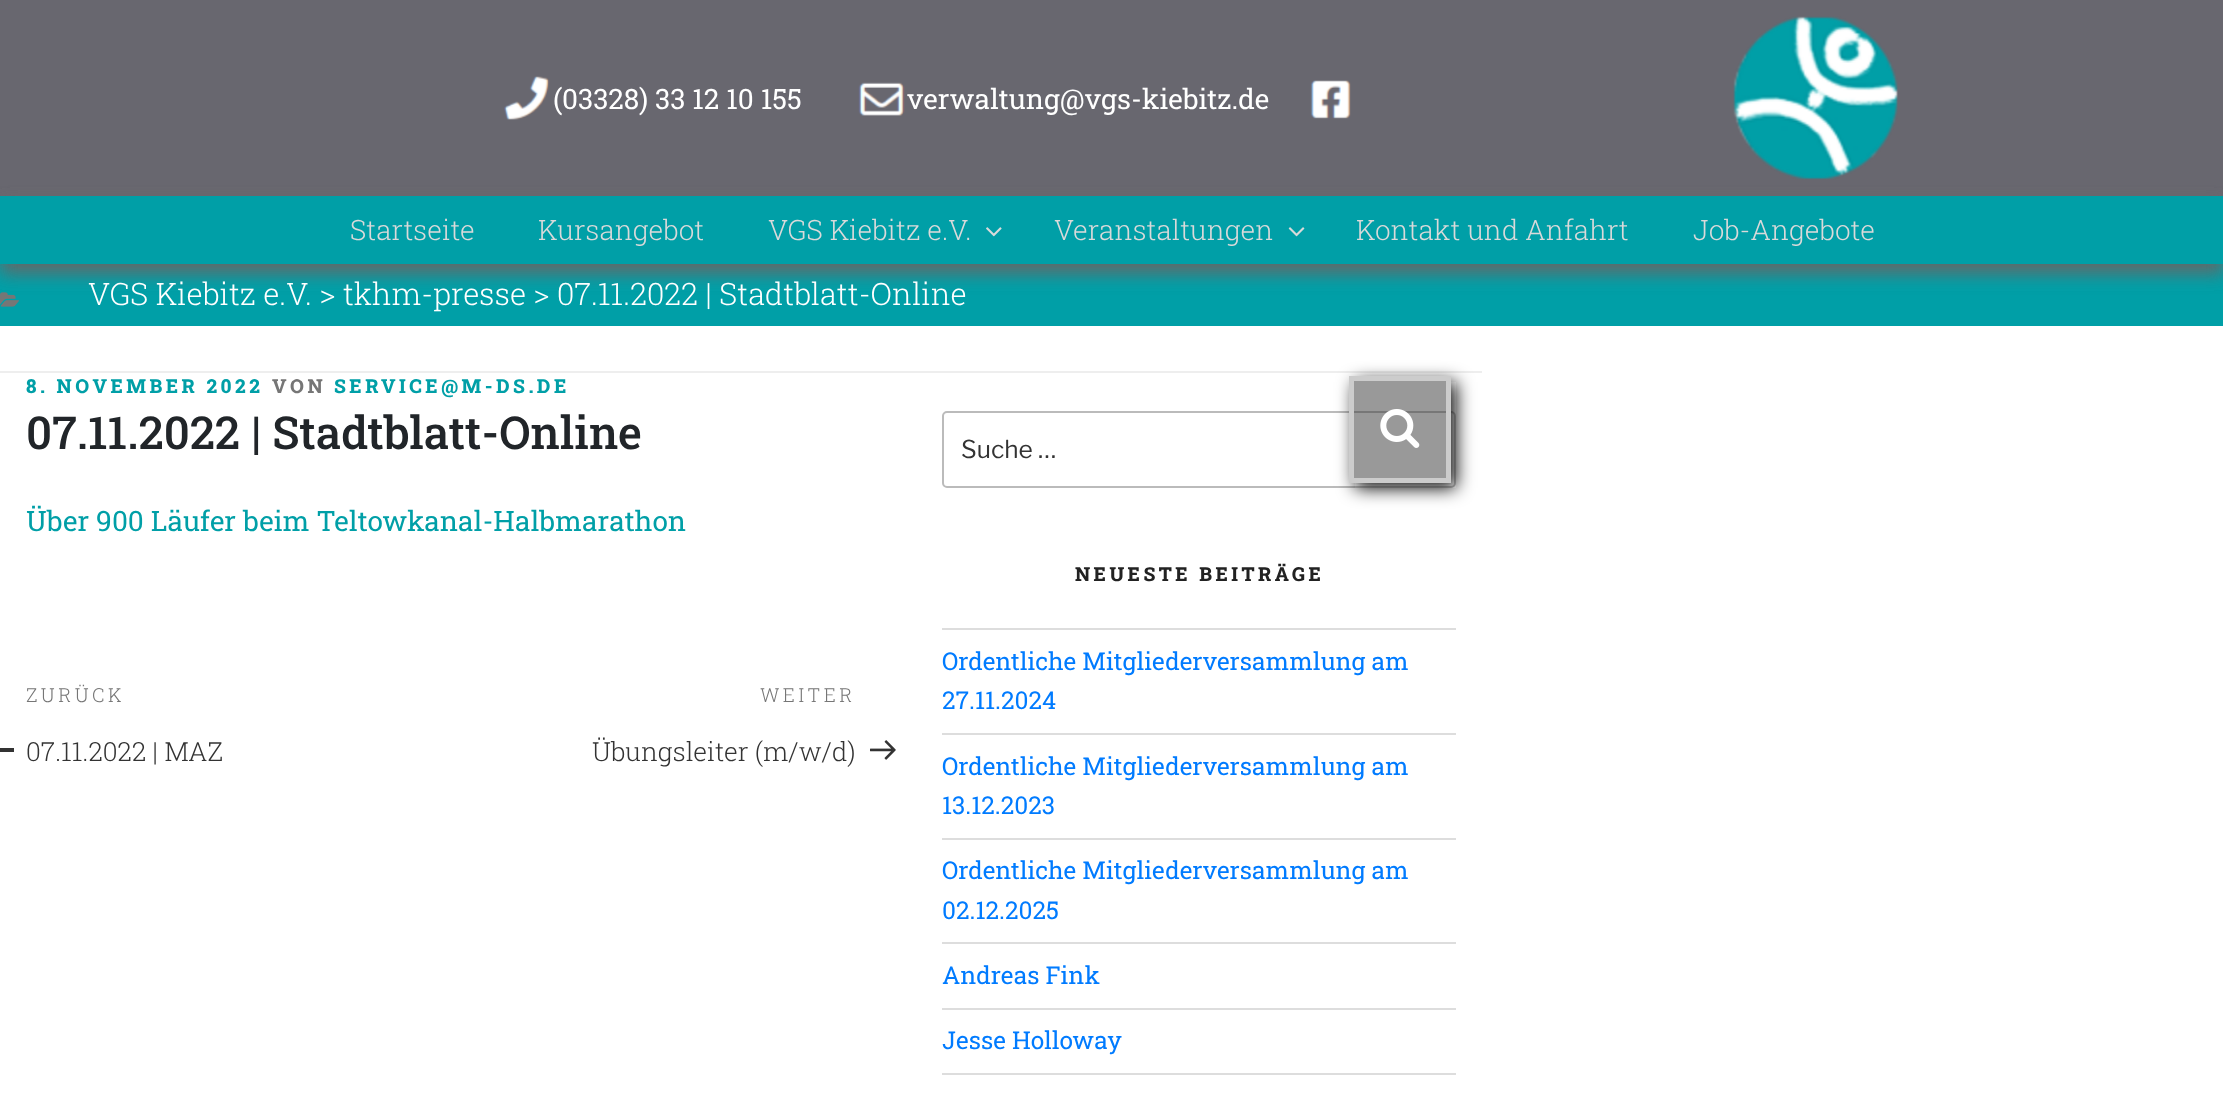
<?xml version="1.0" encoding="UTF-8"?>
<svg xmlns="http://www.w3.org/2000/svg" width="2223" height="1113">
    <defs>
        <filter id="blur1" x="-50%" y="-200%" width="200%" height="500%"><feGaussianBlur stdDeviation="9"/></filter>
        <clipPath id="clip1"><path d="M 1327 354 H 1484 V 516 H 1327 Z M 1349 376 H 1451 V 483 H 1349 Z" clip-rule="evenodd"/></clipPath>
    </defs>
    <rect width="100%" height="100%" fill="#FFFFFF"/>
    <rect x="0" y="0" width="2223" height="196" fill="#68676F"/>
    <image x="504" y="76" width="46" height="44" href="img_01.png"/>
    <text x="553" y="109" font-family="Roboto Slab" font-size="28" fill="#FFFFFF">(03328) 33 12 10 155</text>
    <image x="858" y="82" width="47" height="34" href="img_02.png"/>
    <text x="907" y="109" font-family="Roboto Slab" font-size="28" fill="#FFFFFF">verwaltung@vgs-kiebitz.de</text>
    <image x="1310" y="80" width="41" height="39" href="img_03.png"/>
    <image x="1733" y="16" width="165" height="164" href="img_04.png"/>
    <rect x="0" y="264" width="2223" height="62" fill="#009FA7"/>
    <image x="0" y="292" width="19" height="15" href="img_07.png"/>
    <rect x="0" y="205" width="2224" height="68" fill="#666666" filter="url(#blur1)"/>
    <rect x="0" y="196" width="2223" height="68" fill="#009FA7"/>
    <text x="350" y="240" font-family="Roboto Slab" font-size="28" font-weight="300" fill="#DADADA">Startseite</text>
    <text x="538" y="240" font-family="Roboto Slab" font-size="28" font-weight="300" fill="#DADADA">Kursangebot</text>
    <text x="768" y="240" font-family="Roboto Slab" font-size="28" font-weight="300" fill="#DADADA">VGS Kiebitz e.V.</text>
    <image x="986" y="227" width="16" height="10" href="img_05.png"/>
    <text x="1054" y="240" font-family="Roboto Slab" font-size="28" font-weight="300" fill="#DADADA">Veranstaltungen</text>
    <image x="1288" y="227" width="17" height="10" href="img_06.png"/>
    <text x="1356" y="240" font-family="Roboto Slab" font-size="28" font-weight="300" fill="#DADADA">Kontakt und Anfahrt</text>
    <text x="1693" y="240" font-family="Roboto Slab" font-size="28" font-weight="300" fill="#DADADA">Job-Angebote</text>
    <text x="88" y="305" font-family="Roboto Slab" font-size="30.8" font-weight="300" fill="#FFFFFF">VGS Kiebitz e.V. &gt; tkhm-presse &gt; 07.11.2022 | Stadtblatt-Online</text>
    <rect x="0" y="371" width="1482" height="2" fill="#EEEEEE"/>
    <text x="26" y="393" font-family="Roboto Slab" font-size="19.25" font-weight="800" letter-spacing="3.5" fill="#009FA7">8. NOVEMBER 2022</text>
    <text x="272" y="393" font-family="Roboto Slab" font-size="19.25" font-weight="800" letter-spacing="3.5" fill="#767676">VON</text>
    <text x="334" y="393" font-family="Roboto Slab" font-size="19.25" font-weight="800" letter-spacing="3.5" fill="#009FA7">SERVICE@M-DS.DE</text>
    <text x="26" y="449" font-family="Roboto Slab" font-size="45.5" font-weight="500" fill="#212529">07.11.2022 | Stadtblatt-Online</text>
    <text x="26" y="531" font-family="Roboto Slab" font-size="28" fill="#009FA7">Über 900 Läufer beim Teltowkanal-Halbmarathon</text>
    <text x="26" y="702" font-family="Roboto Slab" font-size="19.25" font-weight="300" letter-spacing="3.5" fill="#767676">ZURÜCK</text>
    <rect x="0" y="748" width="14" height="4" fill="#333333"/>
    <text x="26" y="761" font-family="Roboto Slab" font-size="26.25" font-weight="300" fill="#333333">07.11.2022 | MAZ</text>
    <text x="760" y="702" font-family="Roboto Slab" font-size="19.25" font-weight="300" letter-spacing="3.5" fill="#767676">WEITER</text>
    <text x="592" y="761" font-family="Roboto Slab" font-size="26.25" font-weight="300" fill="#333333">Übungsleiter (m/w/d)</text>
    <image x="870" y="740" width="26" height="20" href="img_08.png"/>
    <rect x="943" y="412" width="512" height="75" rx="4" fill="none" stroke="#BBBBBB" stroke-width="2"/>
    <text x="961" y="458" font-family="Libre Franklin" font-size="24.5" fill="#333333">Suche …</text>
    <g clip-path="url(#clip1)">
        <rect x="1355" y="382" width="101" height="106" fill="#111111" filter="url(#blur1)"/>
    </g>
    <rect x="1351.5" y="378.5" width="97" height="102" fill="#333333" fill-opacity="0.5" stroke="#CCCCCC" stroke-width="5"/>
    <image x="1380" y="409" width="40" height="39" href="img_09.png"/>
    <text x="1075" y="581" font-family="Roboto Slab" font-size="19.25" font-weight="800" letter-spacing="3.5" fill="#222222">NEUESTE BEITRÄGE</text>
    <rect x="942" y="628" width="514" height="2" fill="#DDDDDD"/>
    <rect x="942" y="733" width="514" height="2" fill="#DDDDDD"/>
    <text font-family="Roboto Slab" font-size="24.5" fill="#007BFF">
        <tspan x="942" y="670">Ordentliche Mitgliederversammlung am</tspan>
        <tspan x="942" y="709">27.11.2024</tspan>
    </text>
    <rect x="942" y="838" width="514" height="2" fill="#DDDDDD"/>
    <text font-family="Roboto Slab" font-size="24.5" fill="#007BFF">
        <tspan x="942" y="775">Ordentliche Mitgliederversammlung am</tspan>
        <tspan x="942" y="814">13.12.2023</tspan>
    </text>
    <rect x="942" y="942" width="514" height="2" fill="#DDDDDD"/>
    <text font-family="Roboto Slab" font-size="24.5" fill="#007BFF">
        <tspan x="942" y="879">Ordentliche Mitgliederversammlung am</tspan>
        <tspan x="942" y="919">02.12.2025</tspan>
    </text>
    <rect x="942" y="1008" width="514" height="2" fill="#DDDDDD"/>
    <text x="942" y="984" font-family="Roboto Slab" font-size="24.5" fill="#007BFF">Andreas Fink</text>
    <rect x="942" y="1073" width="514" height="2" fill="#DDDDDD"/>
    <text x="942" y="1049" font-family="Roboto Slab" font-size="24.5" fill="#007BFF">Jesse Holloway</text>
</svg>
